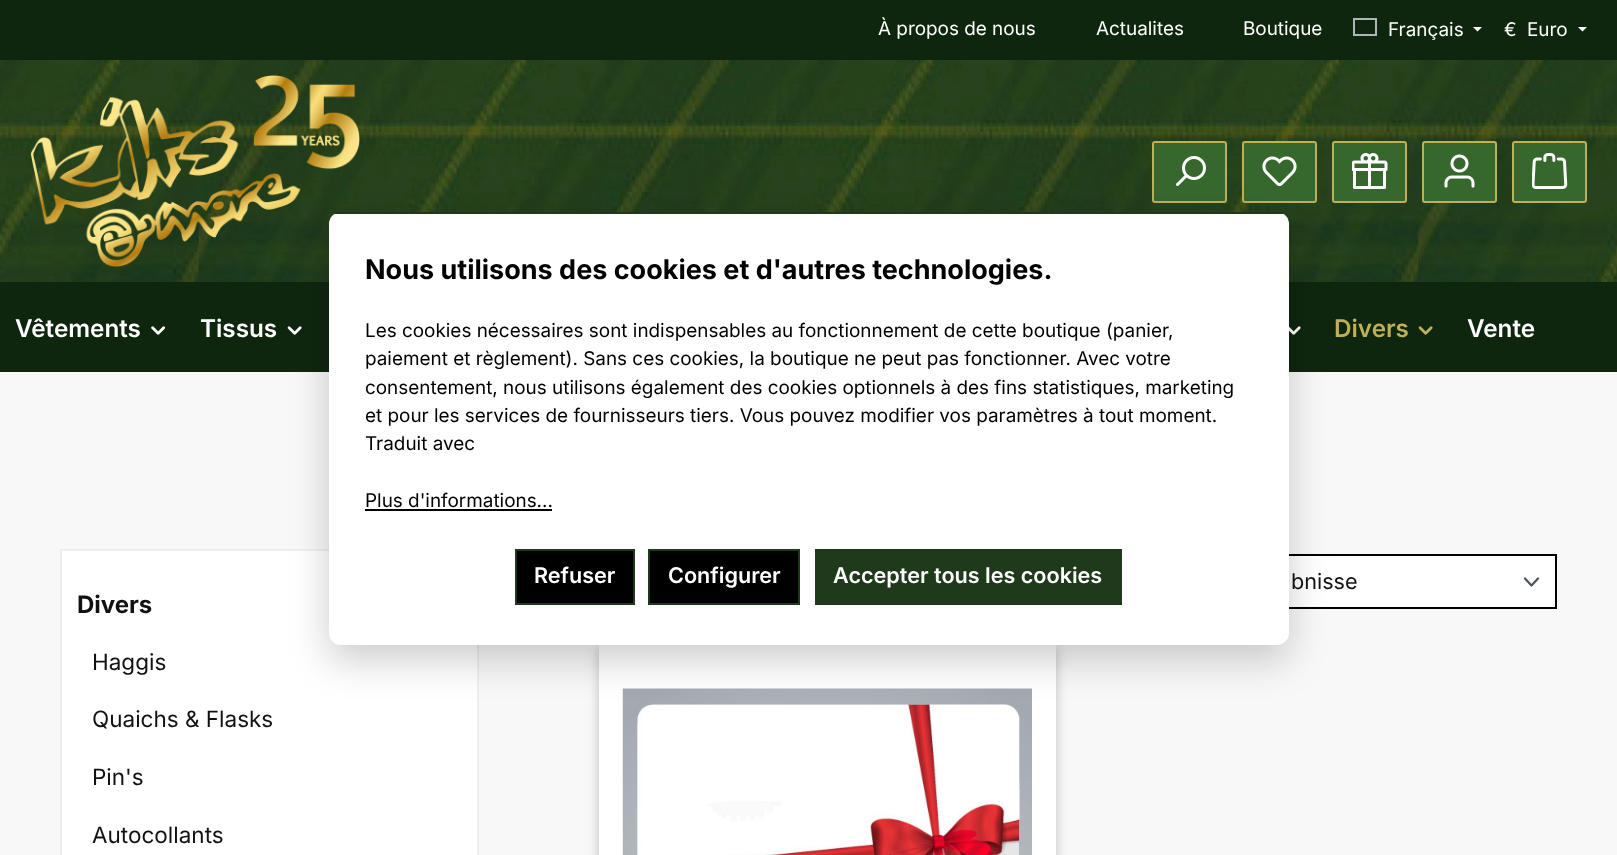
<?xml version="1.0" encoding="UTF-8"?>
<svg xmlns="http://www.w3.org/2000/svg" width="1617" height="855">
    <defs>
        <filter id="blur1" x="-50%" y="-200%" width="200%" height="500%"><feGaussianBlur stdDeviation="6"/></filter>
        <clipPath id="clip1"><rect x="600" y="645" width="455" height="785"/></clipPath>
        <clipPath id="clip2"><path d="M 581 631 H 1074 V 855 H 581 Z M 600 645 H 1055 V 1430 H 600 Z" clip-rule="evenodd"/></clipPath>
        <filter id="blur2" x="-50%" y="-200%" width="200%" height="500%"><feGaussianBlur stdDeviation="19"/></filter>
    </defs>
    <rect width="100%" height="100%" fill="#0E260E"/>
    <text x="878" y="35" font-family="Inter" font-size="18.9" fill="#FFFFFF">À propos de nous</text>
    <text x="1096" y="35" font-family="Inter" font-size="18.9" fill="#FFFFFF">Actualites</text>
    <text x="1243" y="35" font-family="Inter" font-size="18.9" fill="#FFFFFF">Boutique</text>
    <rect x="1354" y="19" width="22" height="16" fill="none" stroke="#ADB5BD" stroke-width="2"/>
    <text x="1388" y="36" font-family="Inter" font-size="18.9" fill="#FFFFFF">Français</text>
    <path d="M 1473 27 H 1482 L 1477.5 31.5 Z" fill="#FFFFFF"/>
    <text x="1504" y="36" font-family="Inter" font-size="18.9" fill="#FFFFFF">€</text>
    <text x="1527" y="36" font-family="Inter" font-size="18.9" fill="#FFFFFF">Euro</text>
    <path d="M 1578 27 H 1587 L 1582.5 31.5 Z" fill="#FFFFFF"/>
    <image x="0" y="60" width="1617" height="222" href="img_01.png"/>
    <image x="31" y="75" width="329" height="192" href="img_02.png"/>
    <rect x="1153" y="142" width="73" height="60" rx="2" fill="#36682E" stroke="#BFAF57" stroke-width="2"/>
    <image x="1176" y="156" width="30" height="30" href="img_03.png"/>
    <rect x="1243" y="142" width="73" height="60" rx="2" fill="#36682E" stroke="#BFAF57" stroke-width="2"/>
    <image x="1262" y="156" width="35" height="30" href="img_04.png"/>
    <rect x="1333" y="142" width="73" height="60" rx="2" fill="#36682E" stroke="#BFAF57" stroke-width="2"/>
    <image x="1352" y="153" width="36" height="36" href="img_05.png"/>
    <rect x="1423" y="142" width="73" height="60" rx="2" fill="#36682E" stroke="#BFAF57" stroke-width="2"/>
    <image x="1444" y="154" width="31" height="34" href="img_06.png"/>
    <rect x="1513" y="142" width="73" height="60" rx="2" fill="#36682E" stroke="#BFAF57" stroke-width="2"/>
    <image x="1532" y="153" width="36" height="36" href="img_07.png"/>
    <image x="287" y="326" width="15" height="9" href="img_09.png"/>
    <image x="1289" y="326" width="12" height="9" href="img_10.png"/>
    <rect x="0" y="372" width="1617" height="147" fill="#F8F8F8"/>
    <rect x="0" y="519" width="1617" height="336" fill="#F8F8F8"/>
    <rect x="1289" y="556" width="266" height="51" fill="#FFFFFF"/>
    <path d="M 1525 578.5 L 1531.5 585.5 L 1538 578.5" fill="none" stroke="#4A545B" stroke-width="2.2" stroke-linecap="round" stroke-linejoin="round"/>
    <rect x="1168" y="555" width="388" height="53" fill="none" stroke="#000000" stroke-width="2"/>
    <rect x="599" y="648" width="457" height="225" fill="#000000" fill-opacity="0.24" filter="url(#blur1)"/>
    <rect x="599" y="645" width="457" height="210" fill="#FFFFFF"/>
    <g clip-path="url(#clip1)">
        <g clip-path="url(#clip2)">
            <rect x="600" y="650" width="455" height="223" fill="#000000" fill-opacity="0.24" filter="url(#blur1)"/>
        </g>
    </g>
    <image x="622" y="688" width="410" height="167" href="img_12.png"/>
    <rect x="61" y="550" width="417" height="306" fill="#FFFFFF" stroke="#EEEEEE" stroke-width="2"/>
    <rect x="329" y="227" width="960" height="433" rx="12" fill="#000000" fill-opacity="0.2" filter="url(#blur2)"/>
    <rect x="329" y="212" width="960" height="433" rx="12" fill="#FFFFFF"/>
    <rect x="335" y="212" width="948" height="2" fill="#1E3A1A"/>
    <text x="365" y="279" font-family="Inter" font-size="27" font-weight="700" fill="#000000">Nous utilisons des cookies et d'autres technologies.</text>
    <text font-family="Inter" font-size="18.9" fill="#000000">
        <tspan x="365" y="337">Les cookies nécessaires sont indispensables au fonctionnement de cette boutique (panier,</tspan>
        <tspan x="365" y="365">paiement et règlement). Sans ces cookies, la boutique ne peut pas fonctionner. Avec votre</tspan>
        <tspan x="365" y="394">consentement, nous utilisons également des cookies optionnels à des fins statistiques, marketing</tspan>
        <tspan x="365" y="422">et pour les services de fournisseurs tiers. Vous pouvez modifier vos paramètres à tout moment.</tspan>
        <tspan x="365" y="450">Traduit avec</tspan>
    </text>
    <text x="365" y="507" font-family="Inter" font-size="18.9" fill="#000000">Plus d'informations...</text>
    <rect x="365" y="509" width="187" height="2" fill="#000000"/>
    <rect x="516" y="550" width="118" height="54" fill="#000000" stroke="#1E3A1A" stroke-width="2"/>
    <text x="534" y="583" font-family="Inter" font-size="21.6" font-weight="600" fill="#FFFFFF">Refuser</text>
    <rect x="649" y="550" width="150" height="54" fill="#000000" stroke="#1E3A1A" stroke-width="2"/>
    <text x="668" y="583" font-family="Inter" font-size="21.6" font-weight="600" fill="#FFFFFF">Configurer</text>
    <rect x="815" y="549" width="307" height="56" fill="#1E3A1A"/>
    <text x="833" y="583" font-family="Inter" font-size="21.6" font-weight="600" fill="#FFFFFF">Accepter tous les cookies</text>
    <text x="15" y="337" font-family="Inter" font-size="24.25" font-weight="600" fill="#FFFFFF">Vêtements</text>
    <image x="151" y="326" width="15" height="9" href="img_08.png"/>
    <text x="200" y="337" font-family="Inter" font-size="24.25" font-weight="600" fill="#FFFFFF">Tissus</text>
    <text x="1334" y="337" font-family="Inter" font-size="24.25" font-weight="600" fill="#BFAF57">Divers</text>
    <image x="1418" y="326" width="15" height="9" href="img_11.png"/>
    <text x="1467" y="337" font-family="Inter" font-size="24.25" font-weight="600" fill="#FFFFFF">Vente</text>
    <text x="1291" y="589" font-family="Inter" font-size="21.6" fill="#111111">bnisse</text>
    <text x="77" y="613" font-family="Inter" font-size="24" font-weight="700" fill="#111111">Divers</text>
    <text x="92" y="670" font-family="Inter" font-size="22.5" fill="#111111">Haggis</text>
    <text x="92" y="727" font-family="Inter" font-size="22.5" fill="#111111">Quaichs &amp; Flasks</text>
    <text x="92" y="785" font-family="Inter" font-size="22.5" fill="#111111">Pin's</text>
    <text x="92" y="843" font-family="Inter" font-size="22.5" fill="#111111">Autocollants</text>
</svg>
